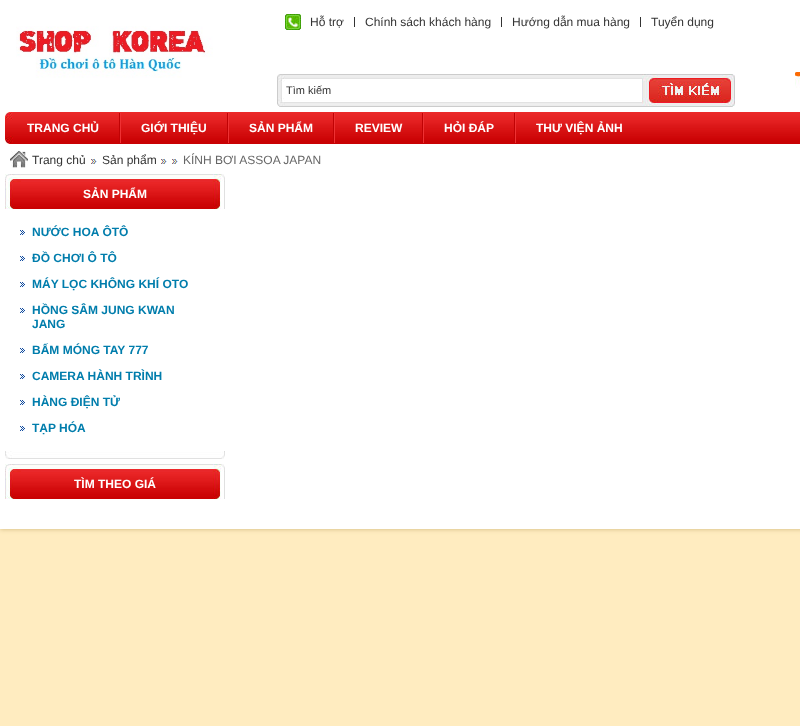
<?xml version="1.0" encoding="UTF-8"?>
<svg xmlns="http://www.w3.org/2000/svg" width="800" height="726">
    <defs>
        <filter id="blur1" x="-50%" y="-200%" width="200%" height="500%"><feGaussianBlur stdDeviation="2.5"/></filter>
    </defs>
    <rect width="100%" height="100%" fill="#FFECC0"/>
    <rect x="0" y="0" width="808" height="529" fill="#CFB57A" filter="url(#blur1)"/>
    <rect x="0" y="0" width="800" height="529" fill="#FFFFFF"/>
    <image x="16" y="26" width="197" height="52" href="img_01.png"/>
    <image x="285" y="14" width="16" height="16" href="img_02.png"/>
    <text x="310" y="26" font-family="Liberation Sans" font-size="12" fill="#333333">Hỗ trợ</text>
    <text x="365" y="26" font-family="Liberation Sans" font-size="12" fill="#333333">Chính sách khách hàng</text>
    <rect x="354" y="17" width="1" height="10" fill="#333333"/>
    <text x="512" y="26" font-family="Liberation Sans" font-size="12" fill="#333333">Hướng dẫn mua hàng</text>
    <rect x="501" y="17" width="1" height="10" fill="#333333"/>
    <text x="651" y="26" font-family="Liberation Sans" font-size="12" fill="#333333">Tuyển dụng</text>
    <rect x="640" y="17" width="1" height="10" fill="#333333"/>
    <image x="795" y="72" width="5" height="16" href="img_03.png"/>
    <image x="277" y="74" width="365" height="33" href="img_04.png"/>
    <text x="286" y="94" font-family="Liberation Sans" font-size="11" fill="#333333">Tìm kiếm</text>
    <image x="642" y="74" width="93" height="33" href="img_05.png"/>
    <image x="5" y="112" width="795" height="32" href="img_06.png"/>
    <text x="27" y="132" font-family="Liberation Sans" font-size="12" font-weight="700" fill="#FFFFFF">TRANG CHỦ</text>
    <image x="119" y="113" width="2" height="30" href="img_07.png"/>
    <text x="141" y="132" font-family="Liberation Sans" font-size="12" font-weight="700" fill="#FFFFFF">GIỚI THIỆU</text>
    <image x="227" y="113" width="2" height="30" href="img_07.png"/>
    <text x="249" y="132" font-family="Liberation Sans" font-size="12" font-weight="700" fill="#FFFFFF">SẢN PHẨM</text>
    <image x="333" y="113" width="2" height="30" href="img_07.png"/>
    <text x="355" y="132" font-family="Liberation Sans" font-size="12" font-weight="700" fill="#FFFFFF">REVIEW</text>
    <image x="422" y="113" width="2" height="30" href="img_07.png"/>
    <text x="444" y="132" font-family="Liberation Sans" font-size="12" font-weight="700" fill="#FFFFFF">HỎI ĐÁP</text>
    <image x="514" y="113" width="2" height="30" href="img_07.png"/>
    <text x="536" y="132" font-family="Liberation Sans" font-size="12" font-weight="700" fill="#FFFFFF">THƯ VIỆN ẢNH</text>
    <image x="10" y="151" width="18" height="17" href="img_08.png"/>
    <text x="32" y="164" font-family="Liberation Sans" font-size="12" fill="#333333">Trang chủ</text>
    <image x="91" y="159" width="6" height="5" href="img_09.png"/>
    <text x="102" y="164" font-family="Liberation Sans" font-size="12" fill="#333333">Sản phẩm</text>
    <image x="161" y="159" width="6" height="5" href="img_09.png"/>
    <image x="172" y="159" width="6" height="5" href="img_09.png"/>
    <text x="183" y="164" font-family="Liberation Sans" font-size="12" fill="#666666">KÍNH BƠI ASSOA JAPAN</text>
    <image x="5" y="174" width="220" height="35" href="img_10.png"/>
    <text x="83" y="198" font-family="Liberation Sans" font-size="12" font-weight="700" fill="#FFFFFF">SẢN PHẨM</text>
    <image x="20" y="230" width="5" height="5" href="img_11.png"/>
    <text x="32" y="236" font-family="Liberation Sans" font-size="12" font-weight="700" fill="#007DAC">NƯỚC HOA ÔTÔ</text>
    <image x="20" y="256" width="5" height="5" href="img_11.png"/>
    <text x="32" y="262" font-family="Liberation Sans" font-size="12" font-weight="700" fill="#007DAC">ĐỒ CHƠI Ô TÔ</text>
    <image x="20" y="282" width="5" height="5" href="img_11.png"/>
    <text x="32" y="288" font-family="Liberation Sans" font-size="12" font-weight="700" fill="#007DAC">MÁY LỌC KHÔNG KHÍ OTO</text>
    <image x="20" y="308" width="5" height="5" href="img_11.png"/>
    <text font-family="Liberation Sans" font-size="12" font-weight="700" fill="#007DAC">
        <tspan x="32" y="314">HỒNG SÂM JUNG KWAN</tspan>
        <tspan x="32" y="328">JANG</tspan>
    </text>
    <image x="20" y="348" width="5" height="5" href="img_11.png"/>
    <text x="32" y="354" font-family="Liberation Sans" font-size="12" font-weight="700" fill="#007DAC">BẤM MÓNG TAY 777</text>
    <image x="20" y="374" width="5" height="5" href="img_11.png"/>
    <text x="32" y="380" font-family="Liberation Sans" font-size="12" font-weight="700" fill="#007DAC">CAMERA HÀNH TRÌNH</text>
    <image x="20" y="400" width="5" height="5" href="img_11.png"/>
    <text x="32" y="406" font-family="Liberation Sans" font-size="12" font-weight="700" fill="#007DAC">HÀNG ĐIỆN TỬ</text>
    <image x="20" y="426" width="5" height="5" href="img_11.png"/>
    <text x="32" y="432" font-family="Liberation Sans" font-size="12" font-weight="700" fill="#007DAC">TẠP HÓA</text>
    <image x="5" y="451" width="220" height="8" href="img_12.png"/>
    <image x="5" y="464" width="220" height="35" href="img_10.png"/>
    <text x="74" y="488" font-family="Liberation Sans" font-size="12" font-weight="700" fill="#FFFFFF">TÌM THEO GIÁ</text>
</svg>
